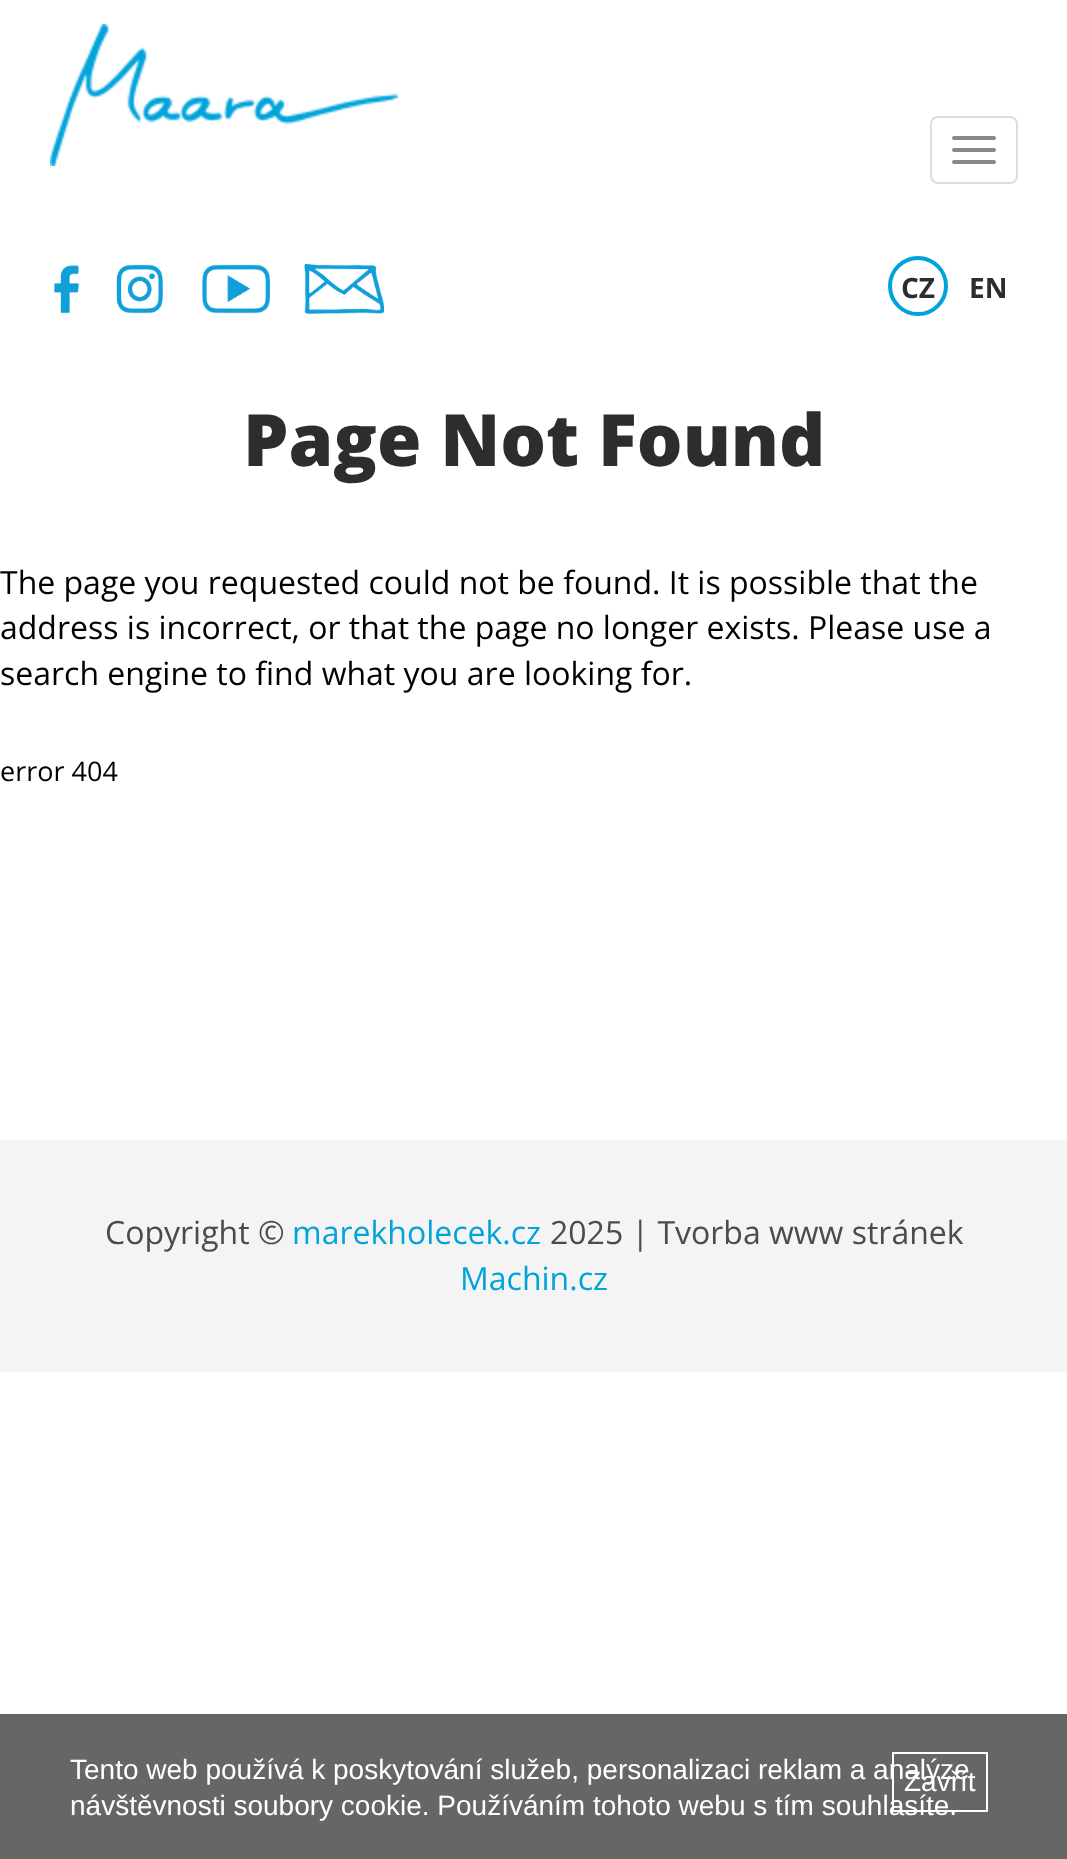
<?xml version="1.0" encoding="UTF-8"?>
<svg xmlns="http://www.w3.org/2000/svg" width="1067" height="1859">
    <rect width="100%" height="100%" fill="#FFFFFF"/>
    <image x="50" y="24" width="348" height="142" href="img_01.png"/>
    <rect x="931" y="117" width="86" height="66" rx="7" fill="none" stroke="#DDDDDD" stroke-width="2"/>
    <rect x="952" y="136" width="44" height="4" rx="2" fill="#888888"/>
    <rect x="952" y="148" width="44" height="4" rx="2" fill="#888888"/>
    <rect x="952" y="160" width="44" height="4" rx="2" fill="#888888"/>
    <image x="54" y="265" width="26" height="49" href="img_02.png"/>
    <image x="116" y="264" width="47" height="50" href="img_03.png"/>
    <image x="202" y="264" width="69" height="50" href="img_04.png"/>
    <image x="304" y="264" width="80" height="50" href="img_05.png"/>
    <circle cx="918" cy="286" r="28" fill="none" stroke="#00A3DA" stroke-width="4"/>
    <text x="901" y="298" font-family="Open Sans" font-size="28" font-weight="700" fill="#2D2D2D">CZ</text>
    <text x="969" y="298" font-family="Open Sans" font-size="28" font-weight="700" fill="#2D2D2D">EN</text>
    <text x="243" y="466" font-family="Open Sans" font-size="72" font-weight="800" fill="#2D2D2D">Page Not Found</text>
    <text font-family="Open Sans" font-size="32" fill="#000000">
        <tspan x="0" y="594">The page you requested could not be found. It is possible that the</tspan>
        <tspan x="0" y="639">address is incorrect, or that the page no longer exists. Please use a</tspan>
        <tspan x="0" y="685">search engine to find what you are looking for.</tspan>
    </text>
    <text x="0" y="781" font-family="Open Sans" font-size="27" fill="#000000">error 404</text>
    <rect x="0" y="1140" width="1067" height="232" fill="#F4F4F4"/>
    <text x="105" y="1244" font-family="Open Sans" font-size="32" fill="#4B4B4B">Copyright ©</text>
    <text x="292" y="1244" font-family="Open Sans" font-size="32" fill="#00A3DA">marekholecek.cz</text>
    <text x="550" y="1244" font-family="Open Sans" font-size="32" fill="#4B4B4B">2025 | Tvorba www stránek</text>
    <text x="460" y="1290" font-family="Open Sans" font-size="32" fill="#00A3DA">Machin.cz</text>
    <rect x="0" y="1714" width="1067" height="145" fill="#666666"/>
    <text x="70" y="1779" font-family="Liberation Sans" font-size="28" fill="#FFFFFF">Tento web používá k poskytování služeb, personalizaci reklam a analýze</text>
    <rect x="893" y="1753" width="94" height="58" fill="none" stroke="#FFFFFF" stroke-width="2"/>
    <text x="904" y="1791" font-family="Liberation Sans" font-size="28" fill="#FFFFFF">Zavřít</text>
    <text x="70" y="1815" font-family="Liberation Sans" font-size="28" fill="#FFFFFF">návštěvnosti soubory cookie. Používáním tohoto webu s tím souhlasíte.</text>
</svg>
